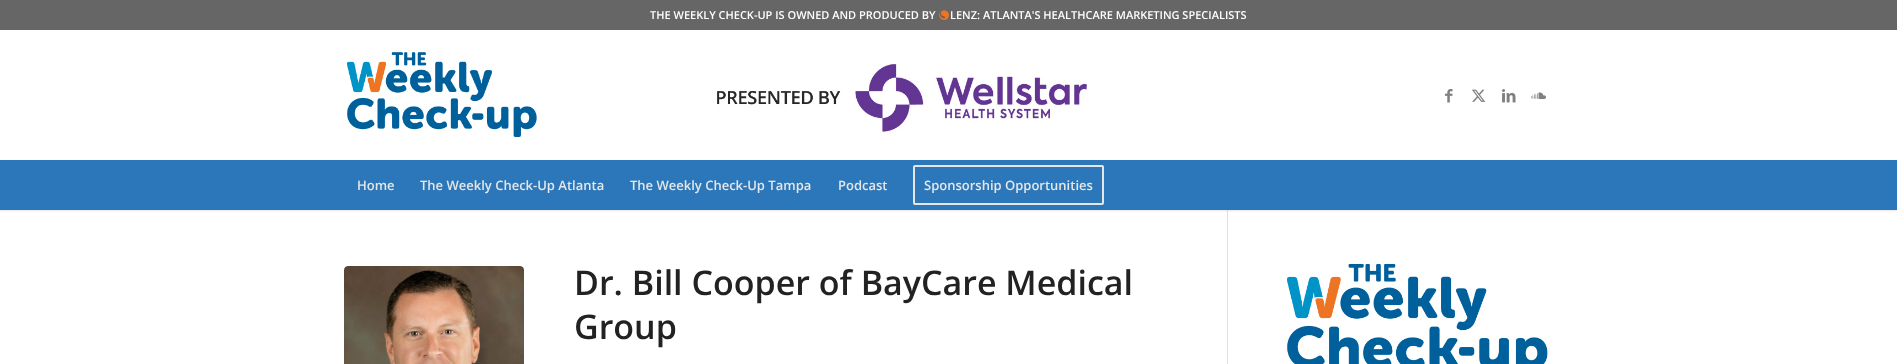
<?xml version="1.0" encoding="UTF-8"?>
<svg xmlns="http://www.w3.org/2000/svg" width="1897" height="364">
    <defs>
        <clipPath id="clip1"><rect x="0" y="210" width="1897" height="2"/></clipPath>
        <filter id="blur1" x="-50%" y="-200%" width="200%" height="500%"><feGaussianBlur stdDeviation="1"/></filter>
    </defs>
    <rect width="100%" height="100%" fill="#FFFFFF"/>
    <rect x="1227" y="210" width="1" height="154" fill="#E1E1E1"/>
    <g clip-path="url(#clip1)">
        <rect x="-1" y="-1" width="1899" height="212" fill="#000000" fill-opacity="0.1" filter="url(#blur1)"/>
    </g>
    <rect x="0" y="0" width="1897" height="30" fill="#666666"/>
    <text x="650" y="19" font-family="Open Sans" font-size="11" font-weight="600" fill="#FFFFFF">THE WEEKLY CHECK-UP IS OWNED AND PRODUCED BY</text>
    <image x="939" y="10" width="10" height="10" href="img_01.png"/>
    <text x="950" y="19" font-family="Open Sans" font-size="11" font-weight="600" fill="#FFFFFF">LENZ: ATLANTA'S HEALTHCARE MARKETING SPECIALISTS</text>
    <image x="347" y="52" width="190" height="85" href="img_02.png"/>
    <image x="1445" y="89" width="8" height="14" href="img_03.png"/>
    <image x="1472" y="89" width="14" height="13" href="img_04.png"/>
    <image x="1502" y="89" width="14" height="14" href="img_05.png"/>
    <image x="1531" y="92" width="15" height="8" href="img_06.png"/>
    <image x="717" y="64" width="371" height="70" href="img_07.png"/>
    <rect x="0" y="160" width="1897" height="50" fill="#2B77BA"/>
    <text x="357" y="190" font-family="Open Sans" font-size="13" font-weight="600" fill="#E6E6E6">Home</text>
    <text x="420" y="190" font-family="Open Sans" font-size="13" font-weight="600" fill="#E6E6E6">The Weekly Check-Up Atlanta</text>
    <text x="630" y="190" font-family="Open Sans" font-size="13" font-weight="600" fill="#E6E6E6">The Weekly Check-Up Tampa</text>
    <text x="838" y="190" font-family="Open Sans" font-size="13" font-weight="600" fill="#E6E6E6">Podcast</text>
    <rect x="914" y="166" width="189" height="38" rx="1" fill="none" stroke="#E6E6E6" stroke-width="2"/>
    <text x="924" y="190" font-family="Open Sans" font-size="13" font-weight="600" fill="#E6E6E6">Sponsorship Opportunities</text>
    <image x="344" y="266" width="180" height="98" href="img_08.png"/>
    <text font-family="Open Sans" font-size="34" font-weight="600" fill="#222222">
        <tspan x="574" y="295">Dr. Bill Cooper of BayCare Medical</tspan>
        <tspan x="574" y="339">Group</tspan>
    </text>
    <image x="1287" y="264" width="261" height="100" href="img_09.png"/>
</svg>
